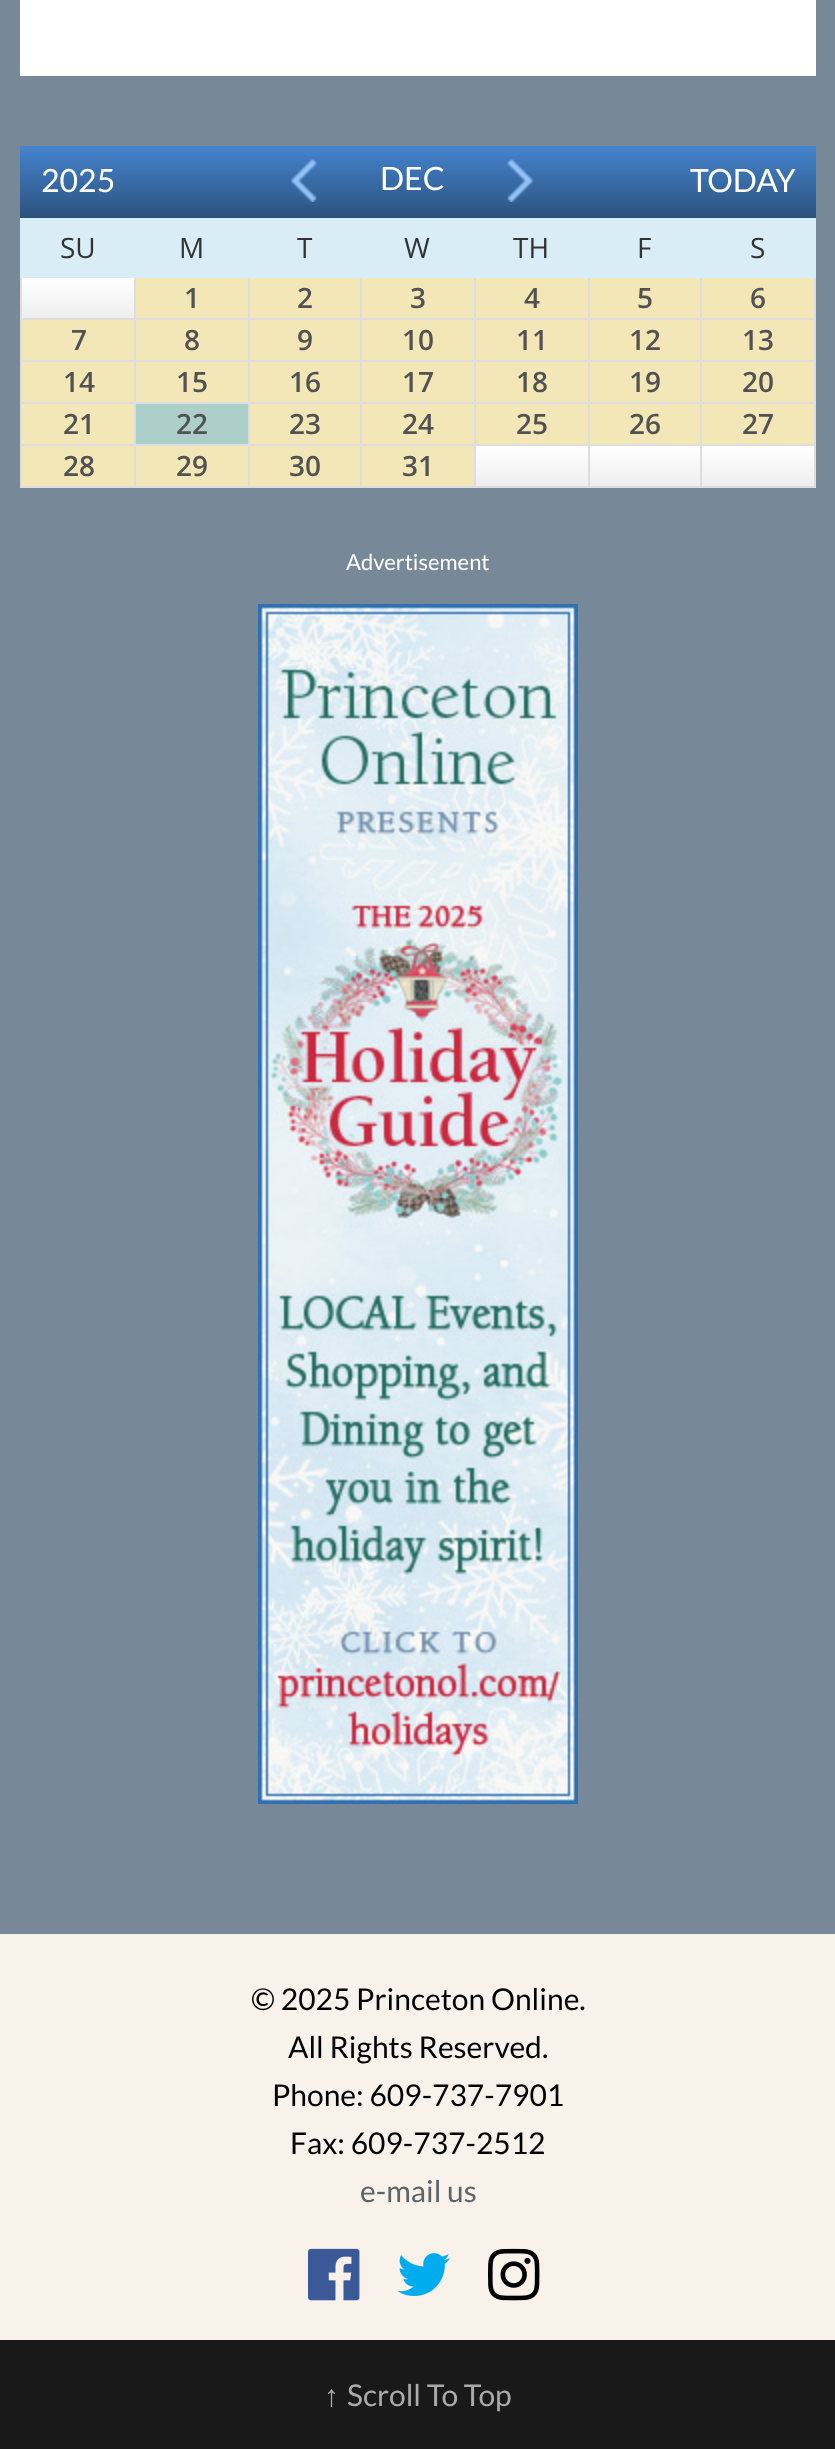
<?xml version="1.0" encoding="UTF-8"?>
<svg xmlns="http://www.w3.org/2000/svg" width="835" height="2449">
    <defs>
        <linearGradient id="g1" gradientUnits="userSpaceOnUse" x1="418" y1="146" x2="418" y2="218"><stop offset="0" stop-color="#4484CE"/><stop offset="1" stop-color="#2C527E"/></linearGradient>
        <linearGradient id="g2" gradientUnits="userSpaceOnUse" x1="78" y1="278" x2="78" y2="318"><stop offset="0" stop-color="#FFFFFF"/><stop offset="1" stop-color="#EEEEEE"/></linearGradient>
        <linearGradient id="g3" gradientUnits="userSpaceOnUse" x1="532" y1="446" x2="532" y2="486"><stop offset="0" stop-color="#FFFFFF"/><stop offset="1" stop-color="#EEEEEE"/></linearGradient>
        <linearGradient id="g4" gradientUnits="userSpaceOnUse" x1="645" y1="446" x2="645" y2="486"><stop offset="0" stop-color="#FFFFFF"/><stop offset="1" stop-color="#EEEEEE"/></linearGradient>
        <linearGradient id="g5" gradientUnits="userSpaceOnUse" x1="758" y1="446" x2="758" y2="486"><stop offset="0" stop-color="#FFFFFF"/><stop offset="1" stop-color="#EEEEEE"/></linearGradient>
    </defs>
    <rect width="100%" height="100%" fill="#191919"/>
    <rect x="0" y="0" width="835" height="1934" fill="#778899"/>
    <rect x="20" y="0" width="796" height="76" fill="#FFFFFF"/>
    <rect x="20" y="146" width="796" height="72" fill="url(#g1)"/>
    <text x="41" y="192" font-family="Lato" font-size="32" fill="#FFFFFF">2025</text>
    <image x="290" y="158" width="27" height="44" href="img_01.png"/>
    <text x="380" y="190" font-family="Lato" font-size="32" fill="#FFFFFF">DEC</text>
    <image x="507" y="158" width="27" height="44" href="img_02.png"/>
    <text x="690" y="192" font-family="Lato" font-size="32" fill="#FFFFFF">TODAY</text>
    <rect x="20" y="218" width="796" height="60" fill="#D9EDF7"/>
    <text x="60" y="258" font-family="Open Sans" font-size="28" fill="#333333">SU</text>
    <text x="179" y="258" font-family="Open Sans" font-size="28" fill="#333333">M</text>
    <text x="297" y="258" font-family="Open Sans" font-size="28" fill="#333333">T</text>
    <text x="404" y="258" font-family="Open Sans" font-size="28" fill="#333333">W</text>
    <text x="513" y="258" font-family="Open Sans" font-size="28" fill="#333333">TH</text>
    <text x="637" y="258" font-family="Open Sans" font-size="28" fill="#333333">F</text>
    <text x="750" y="258" font-family="Open Sans" font-size="28" fill="#333333">S</text>
    <rect x="22" y="278" width="112" height="40" fill="url(#g2)"/>
    <rect x="20" y="318" width="680" height="2" fill="#DDDDDD"/>
    <rect x="20" y="278" width="2" height="42" fill="#DDDDDD"/>
    <rect x="134" y="278" width="2" height="42" fill="#DDDDDD"/>
    <rect x="136" y="278" width="112" height="40" fill="#F3E7B7"/>
    <text x="184" y="308" font-family="Open Sans" font-size="28" font-weight="600" fill="#525252">1</text>
    <rect x="248" y="278" width="2" height="42" fill="#DDDDDD"/>
    <rect x="250" y="278" width="110" height="40" fill="#F3E7B7"/>
    <text x="297" y="308" font-family="Open Sans" font-size="28" font-weight="600" fill="#525252">2</text>
    <rect x="360" y="278" width="2" height="42" fill="#DDDDDD"/>
    <rect x="362" y="278" width="112" height="40" fill="#F3E7B7"/>
    <text x="410" y="308" font-family="Open Sans" font-size="28" font-weight="600" fill="#525252">3</text>
    <rect x="474" y="278" width="2" height="42" fill="#DDDDDD"/>
    <rect x="476" y="278" width="112" height="40" fill="#F3E7B7"/>
    <text x="524" y="308" font-family="Open Sans" font-size="28" font-weight="600" fill="#525252">4</text>
    <rect x="588" y="278" width="2" height="42" fill="#DDDDDD"/>
    <rect x="590" y="278" width="110" height="40" fill="#F3E7B7"/>
    <text x="637" y="308" font-family="Open Sans" font-size="28" font-weight="600" fill="#525252">5</text>
    <rect x="814" y="278" width="2" height="210" fill="#DDDDDD"/>
    <rect x="700" y="318" width="116" height="2" fill="#DDDDDD"/>
    <rect x="700" y="278" width="2" height="42" fill="#DDDDDD"/>
    <rect x="702" y="278" width="112" height="40" fill="#F3E7B7"/>
    <text x="750" y="308" font-family="Open Sans" font-size="28" font-weight="600" fill="#525252">6</text>
    <rect x="20" y="360" width="796" height="2" fill="#DDDDDD"/>
    <rect x="20" y="320" width="2" height="42" fill="#DDDDDD"/>
    <rect x="22" y="320" width="112" height="40" fill="#F3E7B7"/>
    <text x="71" y="350" font-family="Open Sans" font-size="28" font-weight="600" fill="#525252">7</text>
    <rect x="134" y="320" width="2" height="42" fill="#DDDDDD"/>
    <rect x="136" y="320" width="112" height="40" fill="#F3E7B7"/>
    <text x="184" y="350" font-family="Open Sans" font-size="28" font-weight="600" fill="#525252">8</text>
    <rect x="248" y="320" width="2" height="42" fill="#DDDDDD"/>
    <rect x="250" y="320" width="110" height="40" fill="#F3E7B7"/>
    <text x="297" y="350" font-family="Open Sans" font-size="28" font-weight="600" fill="#525252">9</text>
    <rect x="360" y="320" width="2" height="42" fill="#DDDDDD"/>
    <rect x="362" y="320" width="112" height="40" fill="#F3E7B7"/>
    <text x="402" y="350" font-family="Open Sans" font-size="28" font-weight="600" fill="#525252">10</text>
    <rect x="474" y="320" width="2" height="42" fill="#DDDDDD"/>
    <rect x="476" y="320" width="112" height="40" fill="#F3E7B7"/>
    <text x="516" y="350" font-family="Open Sans" font-size="28" font-weight="600" fill="#525252">11</text>
    <rect x="588" y="320" width="2" height="42" fill="#DDDDDD"/>
    <rect x="590" y="320" width="110" height="40" fill="#F3E7B7"/>
    <text x="629" y="350" font-family="Open Sans" font-size="28" font-weight="600" fill="#525252">12</text>
    <rect x="700" y="320" width="2" height="42" fill="#DDDDDD"/>
    <rect x="702" y="320" width="112" height="40" fill="#F3E7B7"/>
    <text x="742" y="350" font-family="Open Sans" font-size="28" font-weight="600" fill="#525252">13</text>
    <rect x="20" y="402" width="796" height="2" fill="#DDDDDD"/>
    <rect x="20" y="362" width="2" height="42" fill="#DDDDDD"/>
    <rect x="22" y="362" width="112" height="40" fill="#F3E7B7"/>
    <text x="63" y="392" font-family="Open Sans" font-size="28" font-weight="600" fill="#525252">14</text>
    <rect x="134" y="362" width="2" height="42" fill="#DDDDDD"/>
    <rect x="136" y="362" width="112" height="40" fill="#F3E7B7"/>
    <text x="176" y="392" font-family="Open Sans" font-size="28" font-weight="600" fill="#525252">15</text>
    <rect x="248" y="362" width="2" height="42" fill="#DDDDDD"/>
    <rect x="250" y="362" width="110" height="40" fill="#F3E7B7"/>
    <text x="289" y="392" font-family="Open Sans" font-size="28" font-weight="600" fill="#525252">16</text>
    <rect x="360" y="362" width="2" height="42" fill="#DDDDDD"/>
    <rect x="362" y="362" width="112" height="40" fill="#F3E7B7"/>
    <text x="402" y="392" font-family="Open Sans" font-size="28" font-weight="600" fill="#525252">17</text>
    <rect x="474" y="362" width="2" height="42" fill="#DDDDDD"/>
    <rect x="476" y="362" width="112" height="40" fill="#F3E7B7"/>
    <text x="516" y="392" font-family="Open Sans" font-size="28" font-weight="600" fill="#525252">18</text>
    <rect x="588" y="362" width="2" height="42" fill="#DDDDDD"/>
    <rect x="590" y="362" width="110" height="40" fill="#F3E7B7"/>
    <text x="629" y="392" font-family="Open Sans" font-size="28" font-weight="600" fill="#525252">19</text>
    <rect x="700" y="362" width="2" height="42" fill="#DDDDDD"/>
    <rect x="702" y="362" width="112" height="40" fill="#F3E7B7"/>
    <text x="742" y="392" font-family="Open Sans" font-size="28" font-weight="600" fill="#525252">20</text>
    <rect x="20" y="444" width="796" height="2" fill="#DDDDDD"/>
    <rect x="20" y="404" width="2" height="42" fill="#DDDDDD"/>
    <rect x="22" y="404" width="112" height="40" fill="#F3E7B7"/>
    <text x="63" y="434" font-family="Open Sans" font-size="28" font-weight="600" fill="#525252">21</text>
    <rect x="136" y="404" width="112" height="40" fill="#ACD0C9"/>
    <rect x="134" y="404" width="2" height="42" fill="#DDDDDD"/>
    <text x="176" y="434" font-family="Open Sans" font-size="28" font-weight="600" fill="#525252">22</text>
    <rect x="248" y="404" width="2" height="42" fill="#DDDDDD"/>
    <rect x="250" y="404" width="110" height="40" fill="#F3E7B7"/>
    <text x="289" y="434" font-family="Open Sans" font-size="28" font-weight="600" fill="#525252">23</text>
    <rect x="360" y="404" width="2" height="42" fill="#DDDDDD"/>
    <rect x="362" y="404" width="112" height="40" fill="#F3E7B7"/>
    <text x="402" y="434" font-family="Open Sans" font-size="28" font-weight="600" fill="#525252">24</text>
    <rect x="474" y="404" width="2" height="42" fill="#DDDDDD"/>
    <rect x="476" y="404" width="112" height="40" fill="#F3E7B7"/>
    <text x="516" y="434" font-family="Open Sans" font-size="28" font-weight="600" fill="#525252">25</text>
    <rect x="588" y="404" width="2" height="42" fill="#DDDDDD"/>
    <rect x="590" y="404" width="110" height="40" fill="#F3E7B7"/>
    <text x="629" y="434" font-family="Open Sans" font-size="28" font-weight="600" fill="#525252">26</text>
    <rect x="700" y="404" width="2" height="42" fill="#DDDDDD"/>
    <rect x="702" y="404" width="112" height="40" fill="#F3E7B7"/>
    <text x="742" y="434" font-family="Open Sans" font-size="28" font-weight="600" fill="#525252">27</text>
    <rect x="20" y="486" width="796" height="2" fill="#DDDDDD"/>
    <rect x="20" y="446" width="2" height="42" fill="#DDDDDD"/>
    <rect x="22" y="446" width="112" height="40" fill="#F3E7B7"/>
    <text x="63" y="476" font-family="Open Sans" font-size="28" font-weight="600" fill="#525252">28</text>
    <rect x="134" y="446" width="2" height="42" fill="#DDDDDD"/>
    <rect x="136" y="446" width="112" height="40" fill="#F3E7B7"/>
    <text x="176" y="476" font-family="Open Sans" font-size="28" font-weight="600" fill="#525252">29</text>
    <rect x="248" y="446" width="2" height="42" fill="#DDDDDD"/>
    <rect x="250" y="446" width="110" height="40" fill="#F3E7B7"/>
    <text x="289" y="476" font-family="Open Sans" font-size="28" font-weight="600" fill="#525252">30</text>
    <rect x="360" y="446" width="2" height="42" fill="#DDDDDD"/>
    <rect x="362" y="446" width="112" height="40" fill="#F3E7B7"/>
    <text x="402" y="476" font-family="Open Sans" font-size="28" font-weight="600" fill="#525252">31</text>
    <rect x="476" y="446" width="112" height="40" fill="url(#g3)"/>
    <rect x="474" y="446" width="2" height="42" fill="#DDDDDD"/>
    <rect x="590" y="446" width="110" height="40" fill="url(#g4)"/>
    <rect x="588" y="446" width="2" height="42" fill="#DDDDDD"/>
    <rect x="702" y="446" width="112" height="40" fill="url(#g5)"/>
    <rect x="700" y="446" width="2" height="42" fill="#DDDDDD"/>
    <text x="346" y="570" font-family="Lato" font-size="22" fill="#FFFFFF">Advertisement</text>
    <image x="258" y="604" width="320" height="1200" href="img_03.png"/>
    <rect x="0" y="1934" width="835" height="406" fill="#F9F2EB"/>
    <text x="251" y="2010" font-family="Lato" font-size="30" fill="#000000">© 2025 Princeton Online.</text>
    <text x="288" y="2058" font-family="Lato" font-size="30" fill="#000000">All Rights Reserved.</text>
    <text x="272" y="2106" font-family="Lato" font-size="30" fill="#000000">Phone: 609-737-7901</text>
    <text x="290" y="2154" font-family="Lato" font-size="30" fill="#000000">Fax: 609-737-2512</text>
    <text x="360" y="2202" font-family="Lato" font-size="30" fill="#5C6369">e-mail us</text>
    <image x="308" y="2248" width="52" height="53" href="img_04.png"/>
    <image x="397" y="2253" width="54" height="43" href="img_05.png"/>
    <image x="488" y="2248" width="52" height="53" href="img_06.png"/>
    <text x="324" y="2406" font-family="Liberation Sans" font-size="30" font-style="italic" fill="#AAAAAA">↑</text>
    <text x="347" y="2406" font-family="Lato" font-size="30" fill="#AAAAAA">Scroll To Top</text>
</svg>
